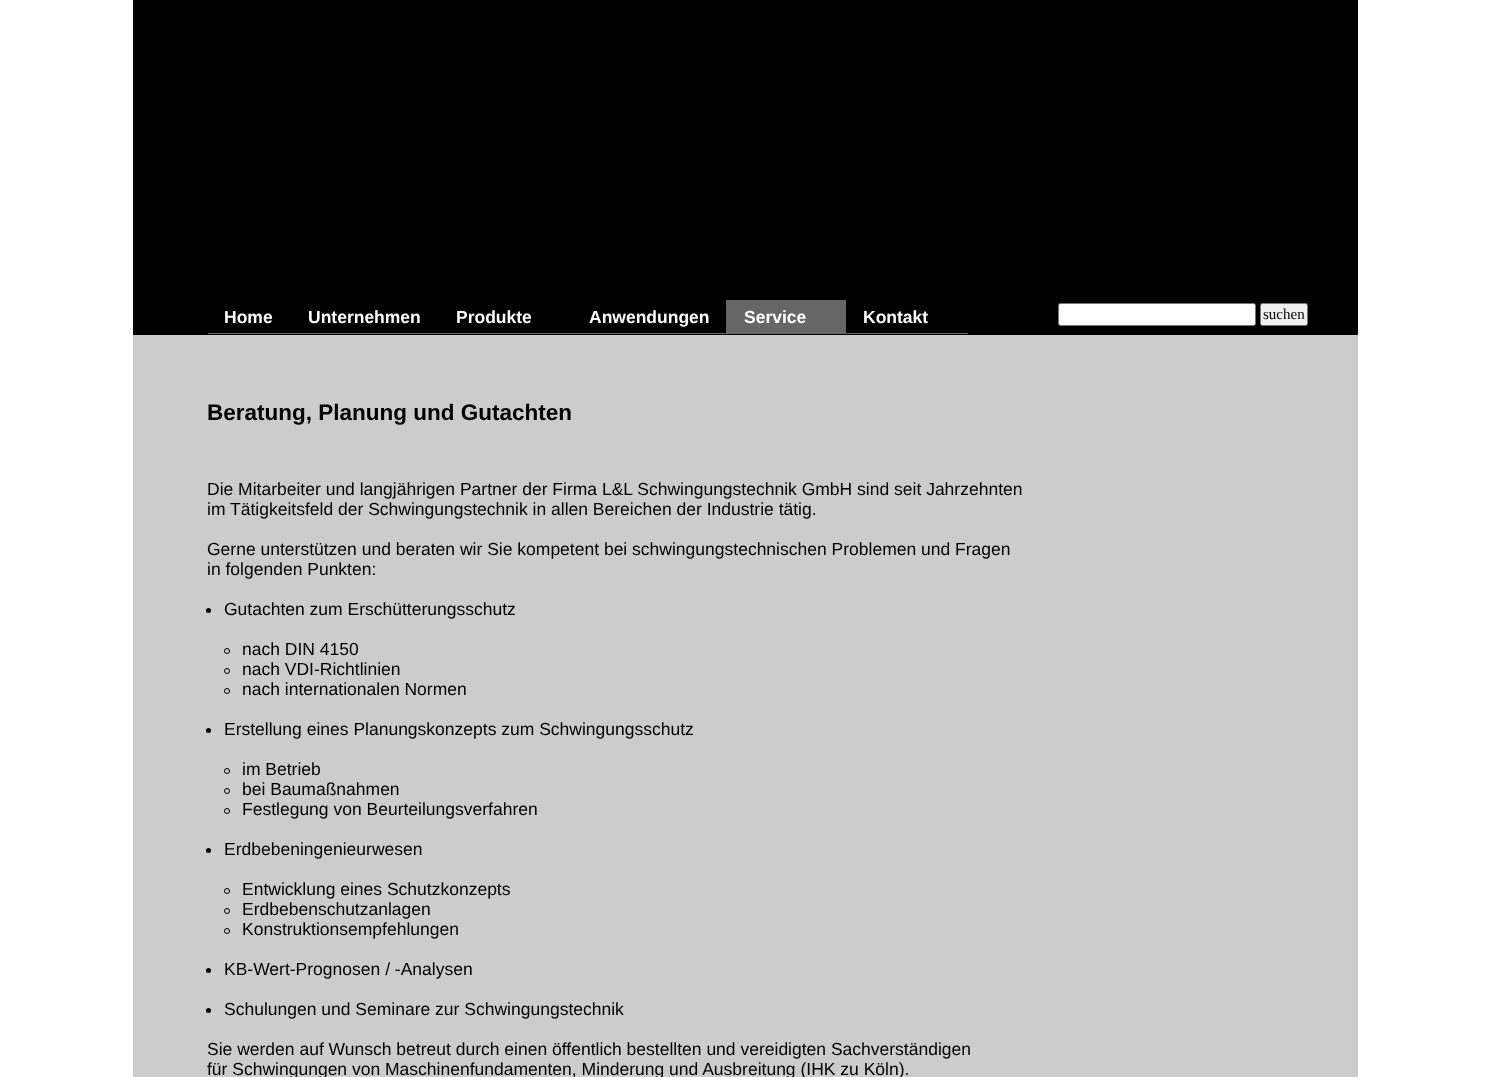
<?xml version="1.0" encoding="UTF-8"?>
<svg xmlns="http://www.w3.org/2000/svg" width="1488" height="1077">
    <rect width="100%" height="100%" fill="#FFFFFF"/>
    <rect x="133" y="0" width="1225" height="335" fill="#000000"/>
    <rect x="208" y="333" width="518" height="1" fill="#666666"/>
    <text x="224" y="323" font-family="Liberation Sans" font-size="17.5" font-weight="700" fill="#FFFFFF">Home</text>
    <text x="308" y="323" font-family="Liberation Sans" font-size="17.5" font-weight="700" fill="#FFFFFF">Unternehmen</text>
    <text x="456" y="323" font-family="Liberation Sans" font-size="17.5" font-weight="700" fill="#FFFFFF">Produkte</text>
    <text x="589" y="323" font-family="Liberation Sans" font-size="17.5" font-weight="700" fill="#FFFFFF">Anwendungen</text>
    <rect x="726" y="300" width="120" height="34" fill="#666666"/>
    <text x="744" y="323" font-family="Liberation Sans" font-size="17.5" font-weight="700" fill="#FFFFFF">Service</text>
    <rect x="846" y="333" width="122" height="1" fill="#666666"/>
    <text x="863" y="323" font-family="Liberation Sans" font-size="17.5" font-weight="700" fill="#FFFFFF">Kontakt</text>
    <rect x="1058.5" y="303.5" width="197" height="22" rx="2" fill="#FFFFFF" stroke="#767676"/>
    <rect x="1260.5" y="303.5" width="47" height="22" rx="2" fill="#EFEFEF" stroke="#767676"/>
    <text x="1263" y="319" font-family="Liberation Serif" font-size="15" fill="#000000">suchen</text>
    <rect x="133" y="335" width="1225" height="742" fill="#CCCCCC"/>
    <text x="207" y="420" font-family="Liberation Sans" font-size="22.5" font-weight="700" fill="#000000">Beratung, Planung und Gutachten</text>
    <text font-family="Liberation Sans" font-size="17.5" fill="#000000">
        <tspan x="207" y="495">Die Mitarbeiter und langjährigen Partner der Firma L&amp;L Schwingungstechnik GmbH sind seit Jahrzehnten</tspan>
        <tspan x="207" y="515">im Tätigkeitsfeld der Schwingungstechnik in allen Bereichen der Industrie tätig.</tspan>
    </text>
    <text font-family="Liberation Sans" font-size="17.5" fill="#000000">
        <tspan x="207" y="555">Gerne unterstützen und beraten wir Sie kompetent bei schwingungstechnischen Problemen und Fragen</tspan>
        <tspan x="207" y="575">in folgenden Punkten:</tspan>
    </text>
    <circle cx="208.5" cy="610.5" r="2.5" fill="#000000"/>
    <text x="224" y="615" font-family="Liberation Sans" font-size="17.5" fill="#000000">Gutachten zum Erschütterungsschutz</text>
    <circle cx="227" cy="651" r="2.5" fill="none" stroke="#000000"/>
    <text x="242" y="655" font-family="Liberation Sans" font-size="17.5" fill="#000000">nach DIN 4150</text>
    <circle cx="227" cy="671" r="2.5" fill="none" stroke="#000000"/>
    <text x="242" y="675" font-family="Liberation Sans" font-size="17.5" fill="#000000">nach VDI-Richtlinien</text>
    <circle cx="227" cy="691" r="2.5" fill="none" stroke="#000000"/>
    <text x="242" y="695" font-family="Liberation Sans" font-size="17.5" fill="#000000">nach internationalen Normen</text>
    <circle cx="208.5" cy="730.5" r="2.5" fill="#000000"/>
    <text x="224" y="735" font-family="Liberation Sans" font-size="17.5" fill="#000000">Erstellung eines Planungskonzepts zum Schwingungsschutz</text>
    <circle cx="227" cy="771" r="2.5" fill="none" stroke="#000000"/>
    <text x="242" y="775" font-family="Liberation Sans" font-size="17.5" fill="#000000">im Betrieb</text>
    <circle cx="227" cy="791" r="2.5" fill="none" stroke="#000000"/>
    <text x="242" y="795" font-family="Liberation Sans" font-size="17.5" fill="#000000">bei Baumaßnahmen</text>
    <circle cx="227" cy="811" r="2.5" fill="none" stroke="#000000"/>
    <text x="242" y="815" font-family="Liberation Sans" font-size="17.5" fill="#000000">Festlegung von Beurteilungsverfahren</text>
    <circle cx="208.5" cy="850.5" r="2.5" fill="#000000"/>
    <text x="224" y="855" font-family="Liberation Sans" font-size="17.5" fill="#000000">Erdbebeningenieurwesen</text>
    <circle cx="227" cy="891" r="2.5" fill="none" stroke="#000000"/>
    <text x="242" y="895" font-family="Liberation Sans" font-size="17.5" fill="#000000">Entwicklung eines Schutzkonzepts</text>
    <circle cx="227" cy="911" r="2.5" fill="none" stroke="#000000"/>
    <text x="242" y="915" font-family="Liberation Sans" font-size="17.5" fill="#000000">Erdbebenschutzanlagen</text>
    <circle cx="227" cy="931" r="2.5" fill="none" stroke="#000000"/>
    <text x="242" y="935" font-family="Liberation Sans" font-size="17.5" fill="#000000">Konstruktionsempfehlungen</text>
    <circle cx="208.5" cy="970.5" r="2.5" fill="#000000"/>
    <text x="224" y="975" font-family="Liberation Sans" font-size="17.5" fill="#000000">KB-Wert-Prognosen / -Analysen</text>
    <circle cx="208.5" cy="1010.5" r="2.5" fill="#000000"/>
    <text x="224" y="1015" font-family="Liberation Sans" font-size="17.5" fill="#000000">Schulungen und Seminare zur Schwingungstechnik</text>
    <text font-family="Liberation Sans" font-size="17.5" fill="#000000">
        <tspan x="207" y="1055">Sie werden auf Wunsch betreut durch einen öffentlich bestellten und vereidigten Sachverständigen</tspan>
        <tspan x="207" y="1075">für Schwingungen von Maschinenfundamenten, Minderung und Ausbreitung (IHK zu Köln).</tspan>
    </text>
</svg>
